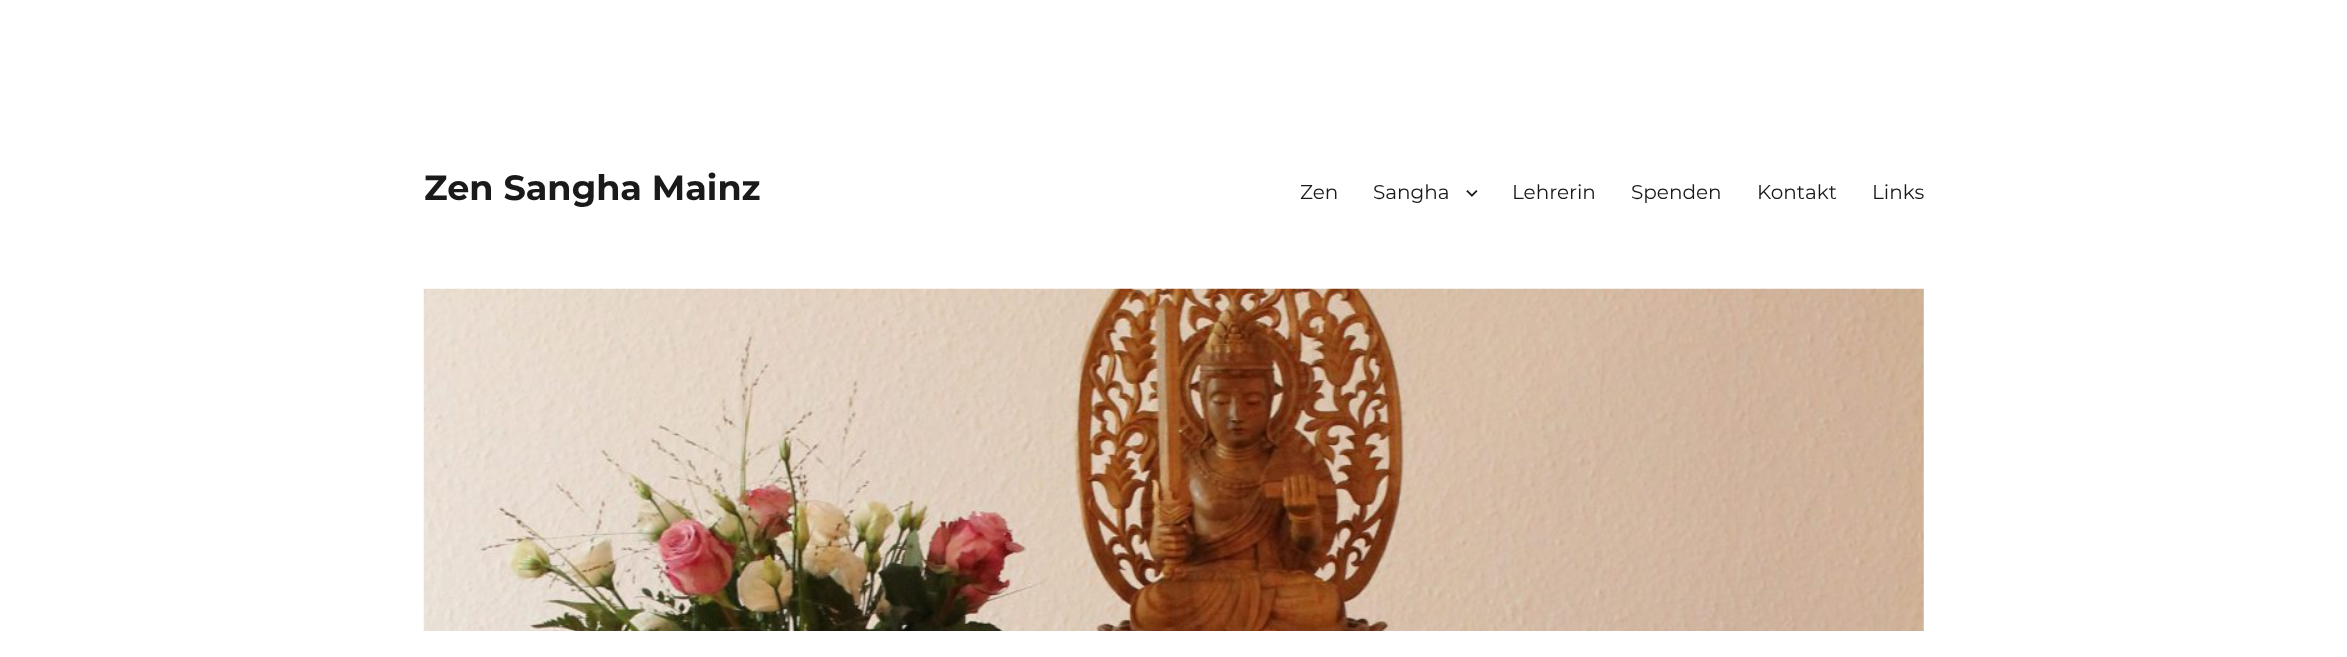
<?xml version="1.0" encoding="UTF-8"?>
<svg xmlns="http://www.w3.org/2000/svg" width="2347" height="657">
    <rect width="100%" height="100%" fill="#FFFFFF"/>
    <text x="424" y="200" font-family="Montserrat" font-size="35" font-weight="100" fill="#1A1A1A">Zen Sangha Mainz</text>
    <text x="1300" y="199" font-family="'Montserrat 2'" font-size="20" font-weight="100" fill="#1A1A1A">Zen</text>
    <text x="1373" y="199" font-family="'Montserrat 2'" font-size="20" font-weight="100" fill="#1A1A1A">Sangha</text>
    <image x="1466" y="190" width="12" height="7" href="img_01.png"/>
    <text x="1512" y="199" font-family="'Montserrat 2'" font-size="20" font-weight="100" fill="#1A1A1A">Lehrerin</text>
    <text x="1631" y="199" font-family="'Montserrat 2'" font-size="20" font-weight="100" fill="#1A1A1A">Spenden</text>
    <text x="1757" y="199" font-family="'Montserrat 2'" font-size="20" font-weight="100" fill="#1A1A1A">Kontakt</text>
    <text x="1872" y="199" font-family="'Montserrat 2'" font-size="20" font-weight="100" fill="#1A1A1A">Links</text>
    <image x="423" y="288" width="1501" height="343" href="img_02.png"/>
</svg>
